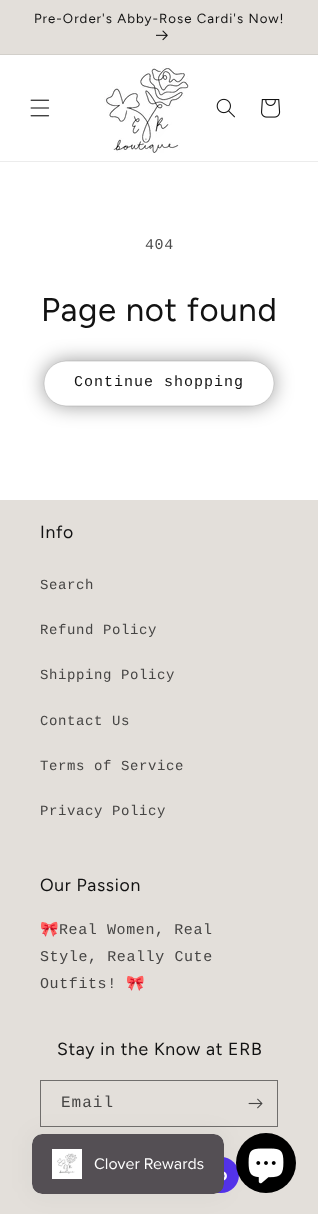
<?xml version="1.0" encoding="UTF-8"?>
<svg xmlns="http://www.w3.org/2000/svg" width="318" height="1214">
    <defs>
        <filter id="blur1" x="-50%" y="-200%" width="200%" height="500%"><feGaussianBlur stdDeviation="10"/></filter>
        <filter id="blur2" x="-50%" y="-200%" width="200%" height="500%"><feGaussianBlur stdDeviation="12.5"/></filter>
    </defs>
    <rect width="100%" height="100%" fill="#FFFFFF"/>
    <rect x="0" y="0" width="318" height="54" fill="#E3DFDA"/>
    <rect x="0" y="54" width="318" height="1" fill="#D2CFCA"/>
    <text x="34" y="23" font-family="Figtree" font-size="13.25" letter-spacing="1" fill="#121212">Pre-Order's Abby-Rose Cardi's Now!</text>
    <image x="156" y="30" width="12" height="11" href="img_01.png"/>
    <rect x="0" y="161" width="318" height="1" fill="#ECECEC"/>
    <image x="30" y="99" width="20" height="18" href="img_02.png"/>
    <image x="104" y="66" width="85" height="87" href="img_03.png"/>
    <image x="216" y="98" width="19" height="20" href="img_04.png"/>
    <image x="261" y="99" width="20" height="19" href="img_05.png"/>
    <text x="145" y="249" font-family="Liberation Mono" font-size="15" letter-spacing="0.6" fill="#4D4D4D">404</text>
    <text x="41" y="321" font-family="Figtree" font-size="33" letter-spacing="0.7" fill="#121212">Page not found</text>
    <rect x="44" y="361" width="230" height="45" rx="22" fill="#121212" fill-opacity="0.4" filter="url(#blur1)"/>
    <rect x="44" y="361" width="230" height="45" rx="22" fill="#FFFFFF"/>
    <rect x="44.15" y="361.15" width="229.7" height="44.7" rx="21.85" fill="none" stroke="#121212" stroke-opacity="0.5" stroke-width="0.3"/>
    <text x="74" y="386" font-family="Liberation Mono" font-size="15" letter-spacing="1" fill="#121212">Continue shopping</text>
    <rect x="0" y="500" width="318" height="714" fill="#E3DFDA"/>
    <text x="40" y="538" font-family="Figtree" font-size="17.6" letter-spacing="0.7" fill="#121212">Info</text>
    <text x="40" y="589" font-family="Liberation Mono" font-size="14" letter-spacing="0.6" fill="#464544">Search</text>
    <text x="40" y="634" font-family="Liberation Mono" font-size="14" letter-spacing="0.6" fill="#464544">Refund Policy</text>
    <text x="40" y="679" font-family="Liberation Mono" font-size="14" letter-spacing="0.6" fill="#464544">Shipping Policy</text>
    <text x="40" y="725" font-family="Liberation Mono" font-size="14" letter-spacing="0.6" fill="#464544">Contact Us</text>
    <text x="40" y="770" font-family="Liberation Mono" font-size="14" letter-spacing="0.6" fill="#464544">Terms of Service</text>
    <text x="40" y="815" font-family="Liberation Mono" font-size="14" letter-spacing="0.6" fill="#464544">Privacy Policy</text>
    <text x="40" y="891" font-family="Figtree" font-size="17.6" letter-spacing="0.7" fill="#121212">Our Passion</text>
    <text x="40" y="934" font-family="Noto Color Emoji" font-size="15" letter-spacing="0.6" fill="#464544">🎀</text>
    <text x="59" y="934" font-family="Liberation Mono" font-size="15" letter-spacing="0.6" fill="#464544">Real Women, Real</text>
    <text font-family="Liberation Mono" font-size="15" letter-spacing="0.6" fill="#464544">
        <tspan x="40" y="961">Style, Really Cute</tspan>
        <tspan x="40" y="988">Outfits!</tspan>
    </text>
    <text x="126" y="988" font-family="Noto Color Emoji" font-size="15" letter-spacing="0.6" fill="#464544">🎀</text>
    <text x="57" y="1055" font-family="Figtree" font-size="17.6" letter-spacing="0.7" fill="#121212">Stay in the Know at ERB</text>
    <rect x="40.5" y="1080.5" width="237" height="46" fill="none" stroke="#706E6C"/>
    <text x="61" y="1107" font-family="Liberation Mono" font-size="16" letter-spacing="1" fill="#464544">Email</text>
    <image x="248" y="1098" width="15" height="11" href="img_06.png"/>
    <rect x="79" y="1157" width="160" height="36" rx="18" fill="#5433EB"/>
    <image x="224" y="1171" width="3" height="10" href="img_07.png"/>
    <circle cx="266" cy="1163" r="30" fill="#000000"/>
    <image x="248" y="1148" width="36" height="36" href="img_09.png"/>
    <rect x="32" y="1134" width="192" height="60" rx="10" fill="#000000" fill-opacity="0.05" filter="url(#blur2)"/>
    <image x="32" y="1134" width="192" height="60" href="img_08.png"/>
</svg>
